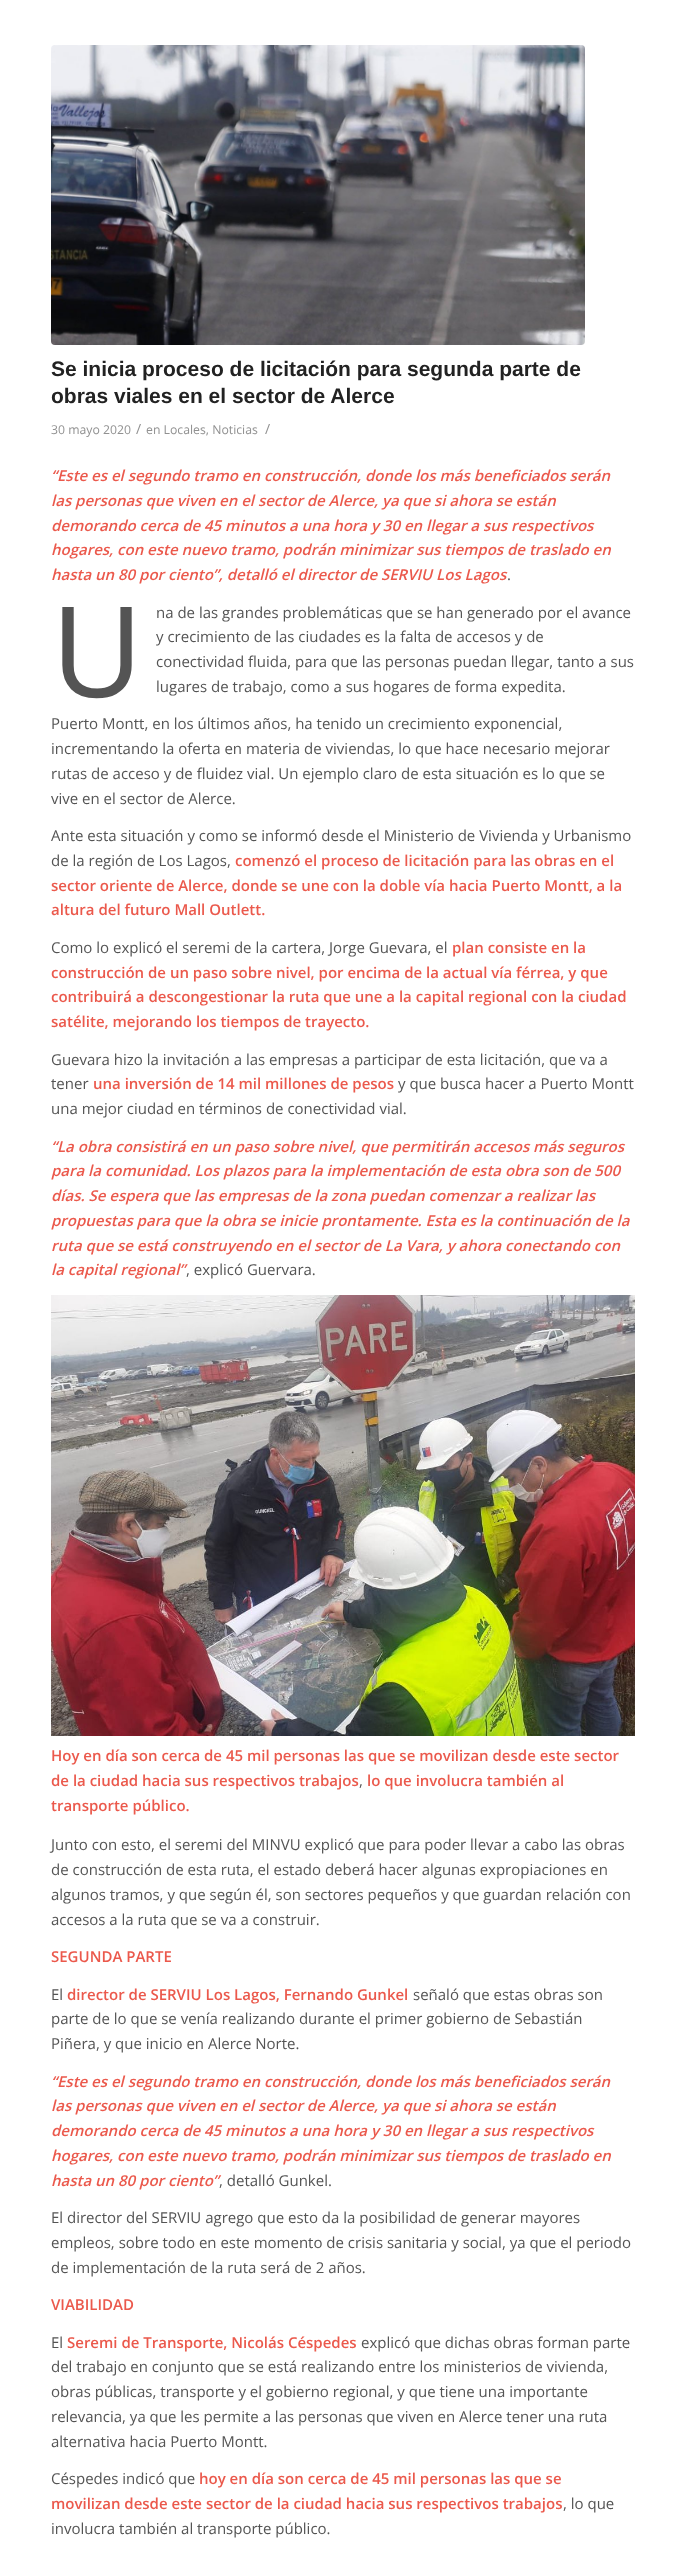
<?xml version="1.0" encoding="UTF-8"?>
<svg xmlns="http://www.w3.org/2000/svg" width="686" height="2561">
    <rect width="100%" height="100%" fill="#FFFFFF"/>
    <image x="51" y="45" width="534" height="300" href="img_01.png"/>
    <text font-family="Liberation Sans" font-size="21" font-weight="700" fill="#222222">
        <tspan x="51" y="376">Se inicia proceso de licitación para segunda parte de</tspan>
        <tspan x="51" y="403">obras viales en el sector de Alerce</tspan>
    </text>
    <text x="51" y="434" font-family="Open Sans" font-size="12.25" fill="#919191">30 mayo 2020</text>
    <text x="136" y="434" font-family="Open Sans" font-size="14" fill="#919191">/</text>
    <text x="146" y="434" font-family="Open Sans" font-size="12.25" fill="#919191">en Locales, Noticias</text>
    <text x="265" y="434" font-family="Open Sans" font-size="14" fill="#919191">/</text>
    <text font-family="Open Sans" font-size="15" font-weight="600" font-style="italic" fill="#EB594C">
        <tspan x="51" y="481">“Este es el segundo tramo en construcción, donde los más beneficiados serán</tspan>
        <tspan x="51" y="506">las personas que viven en el sector de Alerce, ya que si ahora se están</tspan>
        <tspan x="51" y="531">demorando cerca de 45 minutos a una hora y 30 en llegar a sus respectivos</tspan>
        <tspan x="51" y="555">hogares, con este nuevo tramo, podrán minimizar sus tiempos de traslado en</tspan>
        <tspan x="51" y="580">hasta un 80 por ciento”, detalló el director de SERVIU Los Lagos</tspan>
    </text>
    <text x="507" y="580" font-family="Open Sans" font-size="15" fill="#545454">.</text>
    <text x="51" y="697" font-family="Noto Sans" font-size="126" fill="#545454">U</text>
    <text font-family="Open Sans" font-size="15" fill="#545454">
        <tspan x="156" y="618">na de las grandes problemáticas que se han generado por el avance</tspan>
        <tspan x="156" y="642">y crecimiento de las ciudades es la falta de accesos y de</tspan>
        <tspan x="156" y="667">conectividad fluida, para que las personas puedan llegar, tanto a sus</tspan>
        <tspan x="156" y="692">lugares de trabajo, como a sus hogares de forma expedita.</tspan>
    </text>
    <text font-family="Open Sans" font-size="15" fill="#545454">
        <tspan x="51" y="729">Puerto Montt, en los últimos años, ha tenido un crecimiento exponencial,</tspan>
        <tspan x="51" y="754">incrementando la oferta en materia de viviendas, lo que hace necesario mejorar</tspan>
        <tspan x="51" y="779">rutas de acceso y de fluidez vial. Un ejemplo claro de esta situación es lo que se</tspan>
        <tspan x="51" y="804">vive en el sector de Alerce.</tspan>
    </text>
    <text font-family="Open Sans" font-size="15" fill="#545454">
        <tspan x="51" y="841">Ante esta situación y como se informó desde el Ministerio de Vivienda y Urbanismo</tspan>
        <tspan x="51" y="866">de la región de Los Lagos,</tspan>
    </text>
    <text x="235" y="866" font-family="Open Sans" font-size="15" font-weight="600" fill="#EB594C">comenzó el proceso de licitación para las obras en el</text>
    <text font-family="Open Sans" font-size="15" font-weight="600" fill="#EB594C">
        <tspan x="51" y="891">sector oriente de Alerce, donde se une con la doble vía hacia Puerto Montt, a la</tspan>
        <tspan x="51" y="915">altura del futuro Mall Outlett.</tspan>
    </text>
    <text x="51" y="953" font-family="Open Sans" font-size="15" fill="#545454">Como lo explicó el seremi de la cartera, Jorge Guevara, el</text>
    <text x="452" y="953" font-family="Open Sans" font-size="15" font-weight="600" fill="#EB594C">plan consiste en la</text>
    <text font-family="Open Sans" font-size="15" font-weight="600" fill="#EB594C">
        <tspan x="51" y="978">construcción de un paso sobre nivel, por encima de la actual vía férrea, y que</tspan>
        <tspan x="51" y="1002">contribuirá a descongestionar la ruta que une a la capital regional con la ciudad</tspan>
        <tspan x="51" y="1027">satélite, mejorando los tiempos de trayecto.</tspan>
    </text>
    <text font-family="Open Sans" font-size="15" fill="#545454">
        <tspan x="51" y="1065">Guevara hizo la invitación a las empresas a participar de esta licitación, que va a</tspan>
        <tspan x="51" y="1089">tener</tspan>
    </text>
    <text x="93" y="1089" font-family="Open Sans" font-size="15" font-weight="600" fill="#EB594C">una inversión de 14 mil millones de pesos</text>
    <text x="398" y="1089" font-family="Open Sans" font-size="15" fill="#545454">y que busca hacer a Puerto Montt</text>
    <text x="51" y="1114" font-family="Open Sans" font-size="15" fill="#545454">una mejor ciudad en términos de conectividad vial.</text>
    <text font-family="Open Sans" font-size="15" font-weight="600" font-style="italic" fill="#EB594C">
        <tspan x="51" y="1152">“La obra consistirá en un paso sobre nivel, que permitirán accesos más seguros</tspan>
        <tspan x="51" y="1176">para la comunidad. Los plazos para la implementación de esta obra son de 500</tspan>
        <tspan x="51" y="1201">días. Se espera que las empresas de la zona puedan comenzar a realizar las</tspan>
        <tspan x="51" y="1226">propuestas para que la obra se inicie prontamente. Esta es la continuación de la</tspan>
        <tspan x="51" y="1251">ruta que se está construyendo en el sector de La Vara, y ahora conectando con</tspan>
        <tspan x="51" y="1275">la capital regional”</tspan>
    </text>
    <text x="186" y="1275" font-family="Open Sans" font-size="15" fill="#545454">, explicó Guervara.</text>
    <image x="51" y="1295" width="584" height="441" href="img_02.png"/>
    <text font-family="Open Sans" font-size="15" font-weight="600" fill="#EB594C">
        <tspan x="51" y="1761">Hoy en día son cerca de 45 mil personas las que se movilizan desde este sector</tspan>
        <tspan x="51" y="1786">de la ciudad hacia sus respectivos trabajos</tspan>
    </text>
    <text x="359" y="1786" font-family="Open Sans" font-size="15" fill="#545454">,</text>
    <text x="367" y="1786" font-family="Open Sans" font-size="15" font-weight="600" fill="#EB594C">lo que involucra también al</text>
    <text x="51" y="1811" font-family="Open Sans" font-size="15" font-weight="600" fill="#EB594C">transporte público.</text>
    <text font-family="Open Sans" font-size="15" fill="#545454">
        <tspan x="51" y="1850">Junto con esto, el seremi del MINVU explicó que para poder llevar a cabo las obras</tspan>
        <tspan x="51" y="1875">de construcción de esta ruta, el estado deberá hacer algunas expropiaciones en</tspan>
        <tspan x="51" y="1900">algunos tramos, y que según él, son sectores pequeños y que guardan relación con</tspan>
        <tspan x="51" y="1925">accesos a la ruta que se va a construir.</tspan>
    </text>
    <text x="51" y="1962" font-family="Open Sans" font-size="15" font-weight="600" fill="#EB594C">SEGUNDA PARTE</text>
    <text x="51" y="2000" font-family="Open Sans" font-size="15" fill="#545454">El</text>
    <text x="67" y="2000" font-family="Open Sans" font-size="15" font-weight="600" fill="#EB594C">director de SERVIU Los Lagos, Fernando Gunkel</text>
    <text x="413" y="2000" font-family="Open Sans" font-size="15" fill="#545454">señaló que estas obras son</text>
    <text font-family="Open Sans" font-size="15" fill="#545454">
        <tspan x="51" y="2024">parte de lo que se venía realizando durante el primer gobierno de Sebastián</tspan>
        <tspan x="51" y="2049">Piñera, y que inicio en Alerce Norte.</tspan>
    </text>
    <text font-family="Open Sans" font-size="15" font-weight="600" font-style="italic" fill="#EB594C">
        <tspan x="51" y="2087">“Este es el segundo tramo en construcción, donde los más beneficiados serán</tspan>
        <tspan x="51" y="2111">las personas que viven en el sector de Alerce, ya que si ahora se están</tspan>
        <tspan x="51" y="2136">demorando cerca de 45 minutos a una hora y 30 en llegar a sus respectivos</tspan>
        <tspan x="51" y="2161">hogares, con este nuevo tramo, podrán minimizar sus tiempos de traslado en</tspan>
        <tspan x="51" y="2186">hasta un 80 por ciento”</tspan>
    </text>
    <text x="219" y="2186" font-family="Open Sans" font-size="15" fill="#545454">, detalló Gunkel.</text>
    <text font-family="Open Sans" font-size="15" fill="#545454">
        <tspan x="51" y="2223">El director del SERVIU agrego que esto da la posibilidad de generar mayores</tspan>
        <tspan x="51" y="2248">empleos, sobre todo en este momento de crisis sanitaria y social, ya que el periodo</tspan>
        <tspan x="51" y="2273">de implementación de la ruta será de 2 años.</tspan>
    </text>
    <text x="51" y="2310" font-family="Open Sans" font-size="15" font-weight="600" fill="#EB594C">VIABILIDAD</text>
    <text x="51" y="2348" font-family="Open Sans" font-size="15" fill="#545454">El</text>
    <text x="67" y="2348" font-family="Open Sans" font-size="15" font-weight="600" fill="#EB594C">Seremi de Transporte, Nicolás Céspedes</text>
    <text x="361" y="2348" font-family="Open Sans" font-size="15" fill="#545454">explicó que dichas obras forman parte</text>
    <text font-family="Open Sans" font-size="15" fill="#545454">
        <tspan x="51" y="2372">del trabajo en conjunto que se está realizando entre los ministerios de vivienda,</tspan>
        <tspan x="51" y="2397">obras públicas, transporte y el gobierno regional, y que tiene una importante</tspan>
        <tspan x="51" y="2422">relevancia, ya que les permite a las personas que viven en Alerce tener una ruta</tspan>
        <tspan x="51" y="2447">alternativa hacia Puerto Montt.</tspan>
    </text>
    <text x="51" y="2484" font-family="Open Sans" font-size="15" fill="#545454">Céspedes indicó que</text>
    <text x="199" y="2484" font-family="Open Sans" font-size="15" font-weight="600" fill="#EB594C">hoy en día son cerca de 45 mil personas las que se</text>
    <text x="51" y="2509" font-family="Open Sans" font-size="15" font-weight="600" fill="#EB594C">movilizan desde este sector de la ciudad hacia sus respectivos trabajos</text>
    <text x="563" y="2509" font-family="Open Sans" font-size="15" fill="#545454">, lo que</text>
    <text x="51" y="2534" font-family="Open Sans" font-size="15" fill="#545454">involucra también al transporte público.</text>
</svg>
